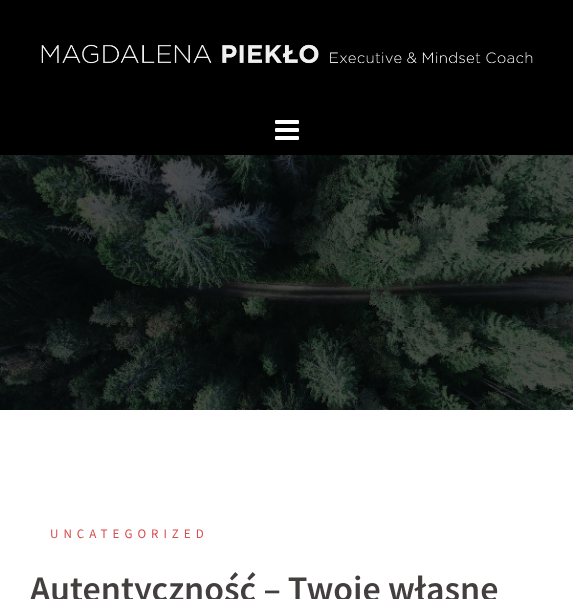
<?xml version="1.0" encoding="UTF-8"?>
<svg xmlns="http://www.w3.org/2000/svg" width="573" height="599">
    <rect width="100%" height="100%" fill="#FFFFFF"/>
    <rect x="0" y="0" width="573" height="155" fill="#000000"/>
    <image x="41" y="44" width="492" height="20" href="img_01.png"/>
    <image x="275" y="120" width="24" height="20" href="img_02.png"/>
    <image x="0" y="155" width="573" height="255" href="img_03.png"/>
    <text x="50" y="538" font-family="Source Sans Pro" font-size="13" letter-spacing="5" fill="#D65050">UNCATEGORIZED</text>
    <text x="30" y="601" font-family="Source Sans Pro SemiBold" font-size="36" font-weight="600" fill="#443F3F">Autentyczność – Twoje własne</text>
</svg>
